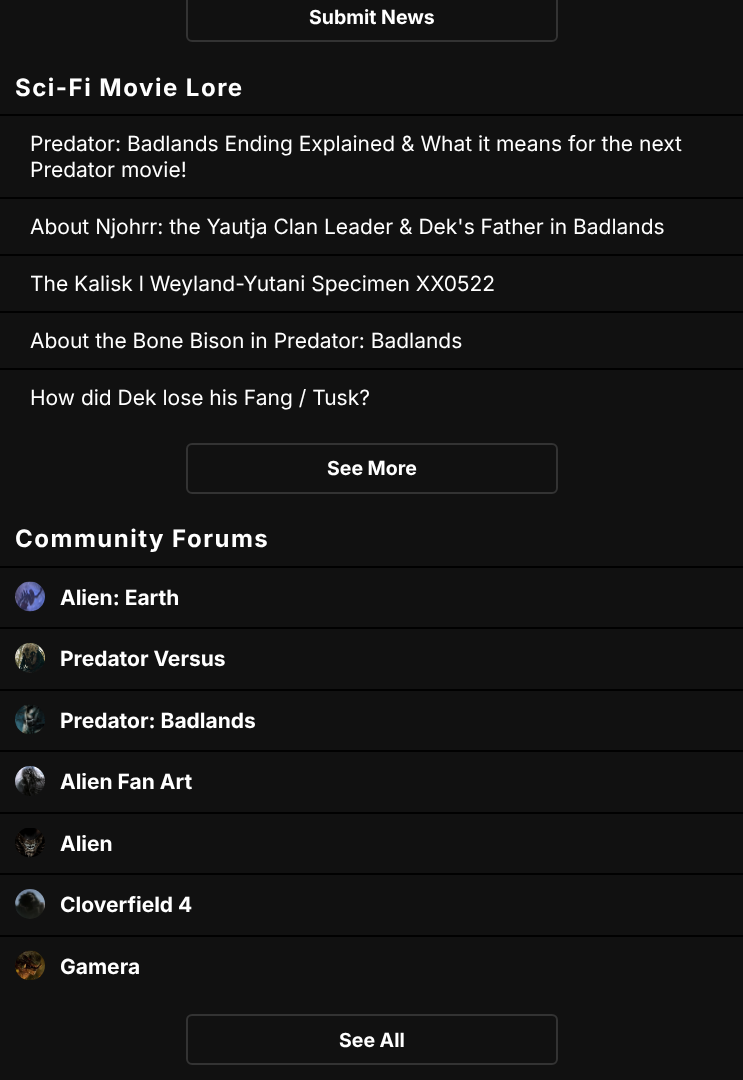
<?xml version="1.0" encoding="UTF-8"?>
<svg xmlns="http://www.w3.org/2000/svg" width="743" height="1080">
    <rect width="100%" height="100%" fill="#111111"/>
    <rect x="187" y="-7" width="370" height="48" rx="5" fill="none" stroke="#333333" stroke-width="2"/>
    <text x="309" y="24" font-family="Inter" font-size="19.5" font-weight="700" fill="#FFFFFF">Submit News</text>
    <text x="15" y="96" font-family="Inter" font-size="24" font-weight="700" letter-spacing="1.5" fill="#FFFFFF">Sci-Fi Movie Lore</text>
    <rect x="0" y="114" width="743" height="2" fill="#010101"/>
    <text font-family="Inter" font-size="21" fill="#FFFFFF">
        <tspan x="30" y="151">Predator: Badlands Ending Explained &amp; What it means for the next</tspan>
        <tspan x="30" y="177">Predator movie!</tspan>
    </text>
    <rect x="0" y="197" width="743" height="2" fill="#010101"/>
    <text x="30" y="234" font-family="Inter" font-size="21" fill="#FFFFFF">About Njohrr: the Yautja Clan Leader &amp; Dek's Father in Badlands</text>
    <rect x="0" y="254" width="743" height="2" fill="#010101"/>
    <text x="30" y="291" font-family="Inter" font-size="21" fill="#FFFFFF">The Kalisk l Weyland-Yutani Specimen XX0522</text>
    <rect x="0" y="311" width="743" height="2" fill="#010101"/>
    <text x="30" y="348" font-family="Inter" font-size="21" fill="#FFFFFF">About the Bone Bison in Predator: Badlands</text>
    <rect x="0" y="368" width="743" height="2" fill="#010101"/>
    <text x="30" y="405" font-family="Inter" font-size="21" fill="#FFFFFF">How did Dek lose his Fang / Tusk?</text>
    <rect x="187" y="444" width="370" height="49" rx="5" fill="none" stroke="#333333" stroke-width="2"/>
    <text x="327" y="475" font-family="Inter" font-size="19.5" font-weight="700" fill="#FFFFFF">See More</text>
    <text x="15" y="547" font-family="Inter" font-size="24" font-weight="700" letter-spacing="1.5" fill="#FFFFFF">Community Forums</text>
    <rect x="0" y="566" width="743" height="2" fill="#010101"/>
    <image x="15" y="581" width="30" height="31" href="img_01.png"/>
    <text x="60" y="605" font-family="Inter" font-size="21" font-weight="700" fill="#FFFFFF">Alien: Earth</text>
    <rect x="0" y="627" width="743" height="2" fill="#010101"/>
    <image x="15" y="643" width="30" height="30" href="img_02.png"/>
    <text x="60" y="666" font-family="Inter" font-size="21" font-weight="700" fill="#FFFFFF">Predator Versus</text>
    <rect x="0" y="689" width="743" height="2" fill="#010101"/>
    <image x="15" y="704" width="30" height="30" href="img_03.png"/>
    <text x="60" y="728" font-family="Inter" font-size="21" font-weight="700" fill="#FFFFFF">Predator: Badlands</text>
    <rect x="0" y="750" width="743" height="2" fill="#010101"/>
    <image x="15" y="766" width="30" height="30" href="img_04.png"/>
    <text x="60" y="789" font-family="Inter" font-size="21" font-weight="700" fill="#FFFFFF">Alien Fan Art</text>
    <rect x="0" y="812" width="743" height="2" fill="#010101"/>
    <image x="15" y="828" width="30" height="30" href="img_05.png"/>
    <text x="60" y="851" font-family="Inter" font-size="21" font-weight="700" fill="#FFFFFF">Alien</text>
    <rect x="0" y="873" width="743" height="2" fill="#010101"/>
    <image x="15" y="889" width="30" height="30" href="img_06.png"/>
    <text x="60" y="912" font-family="Inter" font-size="21" font-weight="700" fill="#FFFFFF">Cloverfield 4</text>
    <rect x="0" y="935" width="743" height="2" fill="#010101"/>
    <image x="15" y="950" width="30" height="30" href="img_07.png"/>
    <text x="60" y="974" font-family="Inter" font-size="21" font-weight="700" fill="#FFFFFF">Gamera</text>
    <rect x="187" y="1015" width="370" height="49" rx="5" fill="none" stroke="#333333" stroke-width="2"/>
    <text x="339" y="1047" font-family="Inter" font-size="19.5" font-weight="700" fill="#FFFFFF">See All</text>
</svg>
